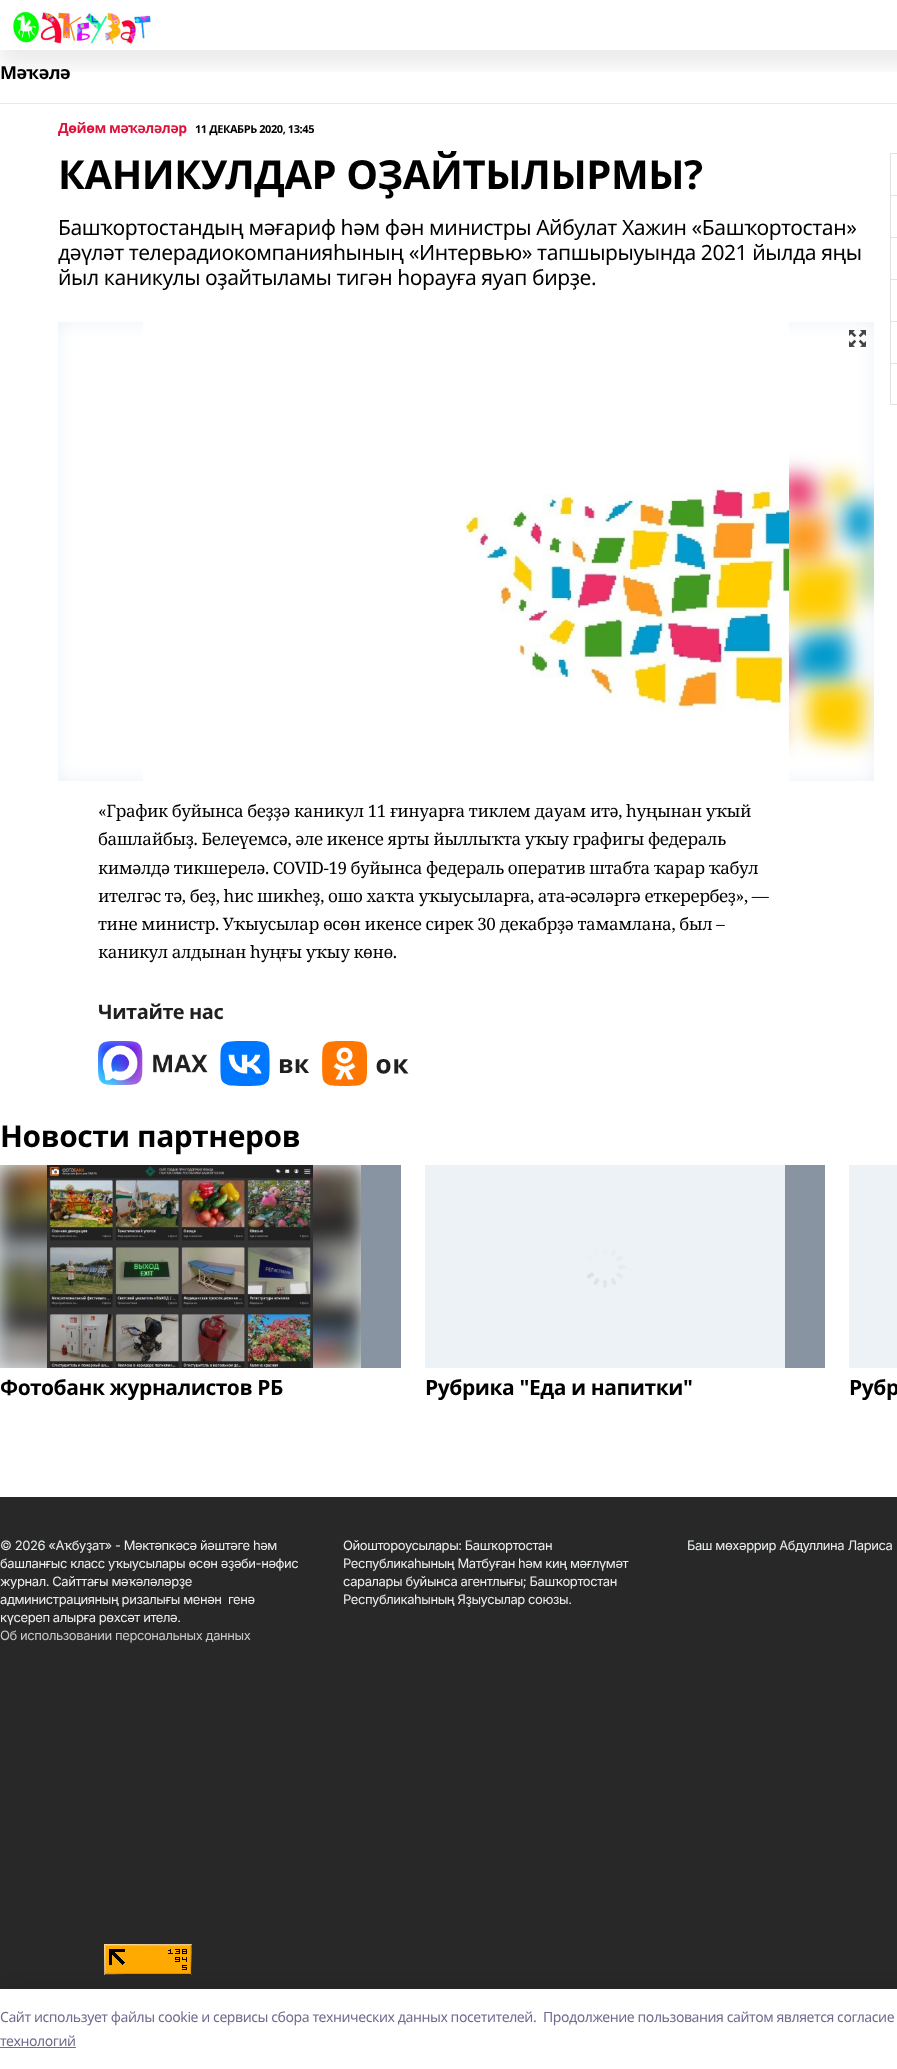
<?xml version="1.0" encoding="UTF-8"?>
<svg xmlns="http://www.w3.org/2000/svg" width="897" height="2069">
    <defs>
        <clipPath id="clip1"><rect x="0" y="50" width="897" height="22"/></clipPath>
        <filter id="blur1" x="-50%" y="-200%" width="200%" height="500%"><feGaussianBlur stdDeviation="10"/></filter>
        <filter id="blur2" x="-50%" y="-200%" width="200%" height="500%"><feGaussianBlur stdDeviation="11.5"/></filter>
    </defs>
    <rect width="100%" height="100%" fill="#FFFFFF"/>
    <g clip-path="url(#clip1)">
        <rect x="0" y="15" width="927" height="50" fill="#000000" fill-opacity="0.08" filter="url(#blur1)"/>
    </g>
    <image x="13" y="12" width="138" height="33" href="img_01.png"/>
    <rect x="0" y="103" width="897" height="1" fill="#EAEAEA"/>
    <text x="0" y="79" font-family="Noto Sans" font-size="18" font-weight="700" letter-spacing="-0.42" fill="#000000">Мәҡәлә</text>
    <text x="58" y="133" font-family="Noto Sans" font-size="14" font-weight="700" letter-spacing="-0.42" fill="#DC143C">Дөйөм мәҡәләләр</text>
    <text x="195" y="133" font-family="Noto Sans" font-size="11" font-weight="700" letter-spacing="-0.42" fill="#000000">11 ДЕКАБРЬ 2020, 13:45</text>
    <text x="58" y="189" font-family="Noto Sans" font-size="40" font-weight="700" letter-spacing="-0.42" fill="#000000">КАНИКУЛДАР ОҘАЙТЫЛЫРМЫ?</text>
    <text font-family="Noto Sans" font-size="21" letter-spacing="-0.42" fill="#000000">
        <tspan x="58" y="235">Башҡортостандың мәғариф һәм фән министры Айбулат Хажин «Башҡортостан»</tspan>
        <tspan x="58" y="260">дәүләт телерадиокомпанияһының «Интервью» тапшырыуында 2021 йылда яңы</tspan>
        <tspan x="58" y="285">йыл каникулы оҙайтыламы тигән һорауға яуап бирҙе.</tspan>
    </text>
    <rect x="58" y="322" width="816" height="459" fill="#EDF2F7"/>
    <image x="58" y="322" width="816" height="459" href="img_02.png"/>
    <image x="143" y="322" width="646" height="459" href="img_03.png"/>
    <image x="849" y="330" width="17" height="17" href="img_04.png"/>
    <text font-family="Noto Serif" font-size="17" letter-spacing="-0.42" fill="#000000">
        <tspan x="98" y="817">«График буйынса беҙҙә каникул 11 ғинуарға тиклем дауам итә, һуңынан уҡый</tspan>
        <tspan x="98" y="845">башлайбыҙ. Белеүемсә, әле икенсе ярты йыллыҡта уҡыу графигы федераль</tspan>
        <tspan x="98" y="874">кимәлдә тикшерелә. COVID-19 буйынса федераль оператив штабта ҡарар ҡабул</tspan>
        <tspan x="98" y="902">ителгәс тә, беҙ, һис шикһеҙ, ошо хаҡта уҡыусыларға, ата-әсәләргә еткерербеҙ», —</tspan>
        <tspan x="98" y="930">тине министр. Уҡыусылар өсөн икенсе сирек 30 декабрҙә тамамлана, был –</tspan>
        <tspan x="98" y="958">каникул алдынан һуңғы уҡыу көнө.</tspan>
    </text>
    <text x="98" y="1019" font-family="Noto Sans" font-size="20" font-weight="700" letter-spacing="-0.42" fill="#202022">Читайте нас</text>
    <image x="98" y="1041" width="110" height="44" href="img_05.png"/>
    <image x="220" y="1041" width="89" height="45" href="img_06.png"/>
    <image x="322" y="1041" width="87" height="45" href="img_07.png"/>
    <rect x="890" y="153" width="7" height="1" fill="#E2E2E2"/>
    <rect x="890" y="153" width="1" height="42" fill="#E2E2E2"/>
    <rect x="890" y="195" width="7" height="1" fill="#E2E2E2"/>
    <rect x="890" y="195" width="1" height="42" fill="#E2E2E2"/>
    <rect x="890" y="237" width="7" height="1" fill="#E2E2E2"/>
    <rect x="890" y="237" width="1" height="42" fill="#E2E2E2"/>
    <rect x="890" y="279" width="7" height="1" fill="#E2E2E2"/>
    <rect x="890" y="279" width="1" height="42" fill="#E2E2E2"/>
    <rect x="890" y="321" width="7" height="1" fill="#E2E2E2"/>
    <rect x="890" y="321" width="1" height="42" fill="#E2E2E2"/>
    <rect x="890.5" y="363.5" width="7" height="41" fill="none" stroke="#E2E2E2"/>
    <text x="0" y="1147" font-family="Noto Sans" font-size="30" font-weight="700" letter-spacing="-0.42" fill="#000000">Новости партнеров</text>
    <rect x="361" y="1165" width="40" height="203" fill="#8894A2"/>
    <rect x="0" y="1165" width="361" height="203" fill="#EDF2F7"/>
    <image x="0" y="1165" width="361" height="203" href="img_08.png"/>
    <image x="47" y="1165" width="266" height="203" href="img_09.png"/>
    <text x="0" y="1395" font-family="Noto Sans" font-size="21" font-weight="700" letter-spacing="-0.42" fill="#000000">Фотобанк журналистов РБ</text>
    <rect x="785" y="1165" width="40" height="203" fill="#8894A2"/>
    <rect x="425" y="1165" width="360" height="203" fill="#EDF2F7"/>
    <image x="587" y="1249" width="39" height="39" href="img_10.png"/>
    <text x="425" y="1395" font-family="Noto Sans" font-size="21" font-weight="700" letter-spacing="-0.42" fill="#000000">Рубрика "Еда и напитки"</text>
    <rect x="849" y="1165" width="48" height="203" fill="#EDF2F7"/>
    <text x="849" y="1395" font-family="Noto Sans" font-size="21" font-weight="700" letter-spacing="-0.42" fill="#000000">Рубр</text>
    <rect x="0" y="1497" width="897" height="492" fill="#282828"/>
    <text font-family="Inter" font-size="13" letter-spacing="-0.42" fill="#ECEFF1" xml:space="preserve"><tspan x="0" y="1550">© 2026 «Аҡбуҙат» - Мәктәпкәсә йәштәге һәм</tspan><tspan x="0" y="1568">башланғыс класс уҡыусылары өсөн әҙәби-нәфис</tspan><tspan x="0" y="1586">журнал. Сайттағы мәҡәләләрҙе</tspan><tspan x="0" y="1604">администрацияның ризалығы менән  генә</tspan><tspan x="0" y="1622">күсереп алырға рөхсәт ителә.</tspan></text>
    <text x="0" y="1640" font-family="Inter" font-size="13" letter-spacing="-0.42" fill="#C9C9C9">Об использовании персональных данных</text>
    <text font-family="Inter" font-size="13" letter-spacing="-0.42" fill="#ECEFF1">
        <tspan x="343" y="1550">Ойоштороусылары: Башҡортостан</tspan>
        <tspan x="343" y="1568">Республикаһының Матбуған һәм киң мәғлүмәт</tspan>
        <tspan x="343" y="1586">саралары буйынса агентлығы; Башҡортостан</tspan>
        <tspan x="343" y="1604">Республикаһының Яҙыусылар союзы.</tspan>
    </text>
    <text x="687" y="1550" font-family="Inter" font-size="13" letter-spacing="-0.42" fill="#ECEFF1">Баш мөхәррир Абдуллина Лариса</text>
    <image x="104" y="1944" width="88" height="31" href="img_11.png"/>
    <rect x="0" y="1983" width="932" height="80" fill="#14142B" fill-opacity="0.08" filter="url(#blur2)"/>
    <rect x="0" y="1989" width="897" height="80" fill="#FFFFFF"/>
    <text x="0" y="2022" font-family="Noto Sans" font-size="14" letter-spacing="-0.42" fill="#6F6C90">Cайт использует файлы cookie и сервисы сбора технических данных посетителей.</text>
    <text x="543" y="2022" font-family="Noto Sans" font-size="14" letter-spacing="-0.42" fill="#6F6C90">Продолжение пользования сайтом является согласие</text>
    <text x="0" y="2046" font-family="Noto Sans" font-size="14" letter-spacing="-0.42" fill="#6F6C90">технологий</text>
    <rect x="0" y="2047" width="76" height="1" fill="#6F6C90"/>
</svg>
